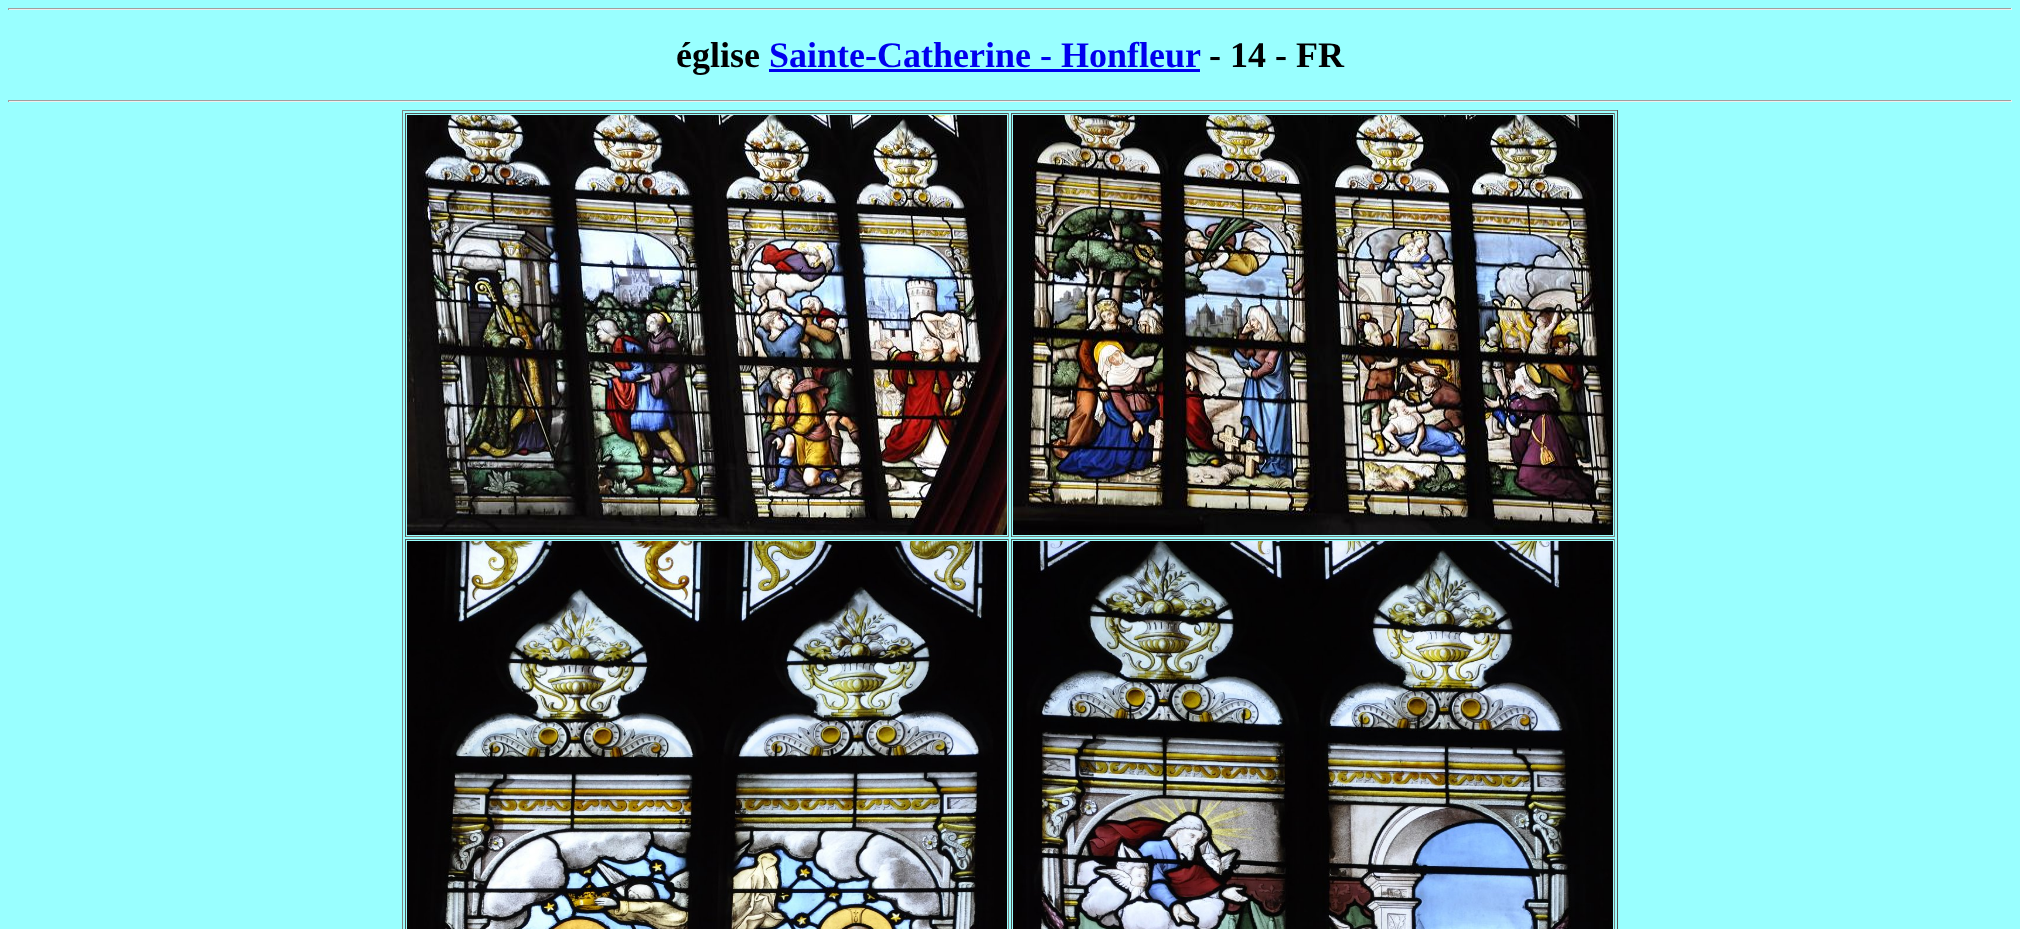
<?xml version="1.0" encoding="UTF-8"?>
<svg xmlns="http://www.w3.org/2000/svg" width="2020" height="929">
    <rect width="100%" height="100%" fill="#99FFFF"/>
    <rect x="8" y="8" width="2004" height="1" fill="#9F9F9F"/>
    <rect x="2011" y="8" width="1" height="2" fill="#EEEEEE"/>
    <rect x="8" y="9" width="2004" height="1" fill="#EEEEEE"/>
    <rect x="8" y="8" width="1" height="2" fill="#9F9F9F"/>
    <text x="676" y="67" font-family="Liberation Serif" font-size="36" font-weight="700" fill="#000000">église</text>
    <text x="769" y="67" font-family="Liberation Serif" font-size="36" font-weight="700" fill="#0000EE">Sainte-Catherine - Honfleur</text>
    <rect x="769" y="69" width="431" height="3" fill="#0000EE"/>
    <text x="1209" y="67" font-family="Liberation Serif" font-size="36" font-weight="700" fill="#000000">- 14 - FR</text>
    <rect x="8" y="100" width="2004" height="1" fill="#9F9F9F"/>
    <rect x="2011" y="100" width="1" height="2" fill="#EEEEEE"/>
    <rect x="8" y="101" width="2004" height="1" fill="#EEEEEE"/>
    <rect x="8" y="100" width="1" height="2" fill="#9F9F9F"/>
    <rect x="402" y="110" width="1216" height="1" fill="#808080"/>
    <rect x="1617" y="110" width="1" height="819" fill="#555555"/>
    <rect x="402" y="110" width="1" height="819" fill="#808080"/>
    <rect x="405" y="113" width="604" height="1" fill="#555555"/>
    <rect x="1008" y="113" width="1" height="424" fill="#808080"/>
    <rect x="405" y="536" width="604" height="1" fill="#808080"/>
    <rect x="405" y="113" width="1" height="424" fill="#555555"/>
    <image x="407" y="115" width="600" height="420" href="img_01.png"/>
    <rect x="1011" y="113" width="604" height="1" fill="#555555"/>
    <rect x="1614" y="113" width="1" height="424" fill="#808080"/>
    <rect x="1011" y="536" width="604" height="1" fill="#808080"/>
    <rect x="1011" y="113" width="1" height="424" fill="#555555"/>
    <image x="1013" y="115" width="600" height="420" href="img_02.png"/>
    <rect x="405" y="539" width="604" height="1" fill="#555555"/>
    <rect x="1008" y="539" width="1" height="390" fill="#808080"/>
    <rect x="405" y="539" width="1" height="390" fill="#555555"/>
    <image x="407" y="541" width="600" height="388" href="img_03.png"/>
    <rect x="1011" y="539" width="604" height="1" fill="#555555"/>
    <rect x="1614" y="539" width="1" height="390" fill="#808080"/>
    <rect x="1011" y="539" width="1" height="390" fill="#555555"/>
    <image x="1013" y="541" width="600" height="388" href="img_04.png"/>
</svg>
